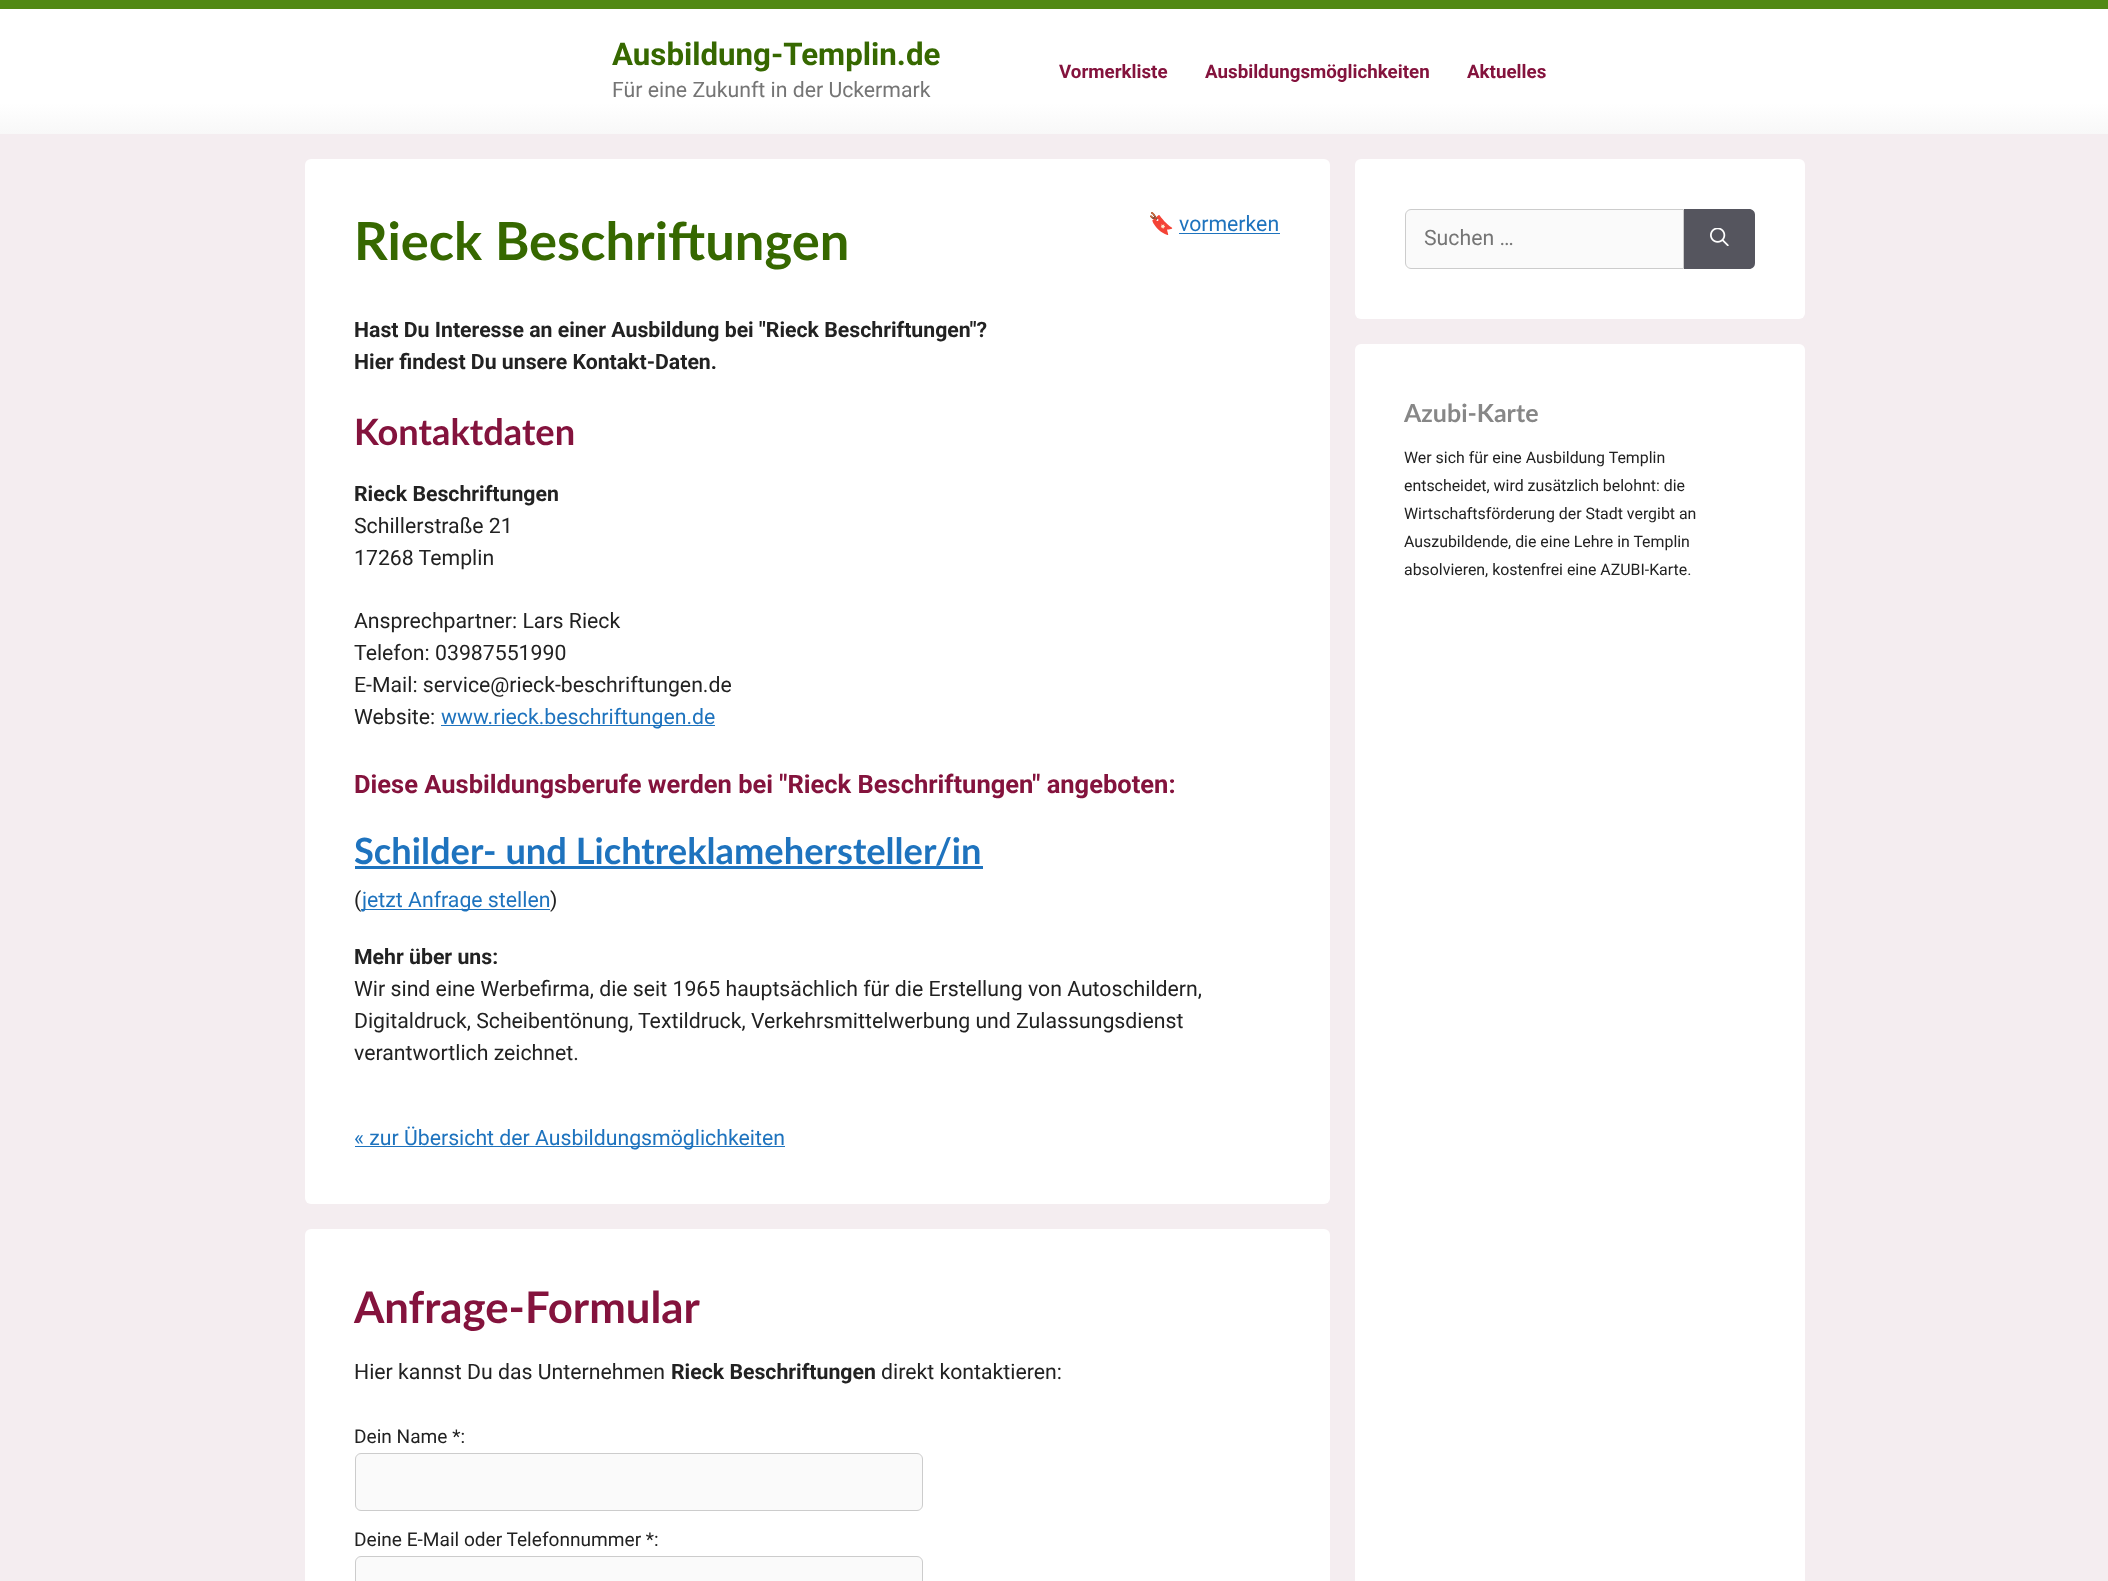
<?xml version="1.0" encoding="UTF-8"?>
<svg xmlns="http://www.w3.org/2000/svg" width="2108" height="1581">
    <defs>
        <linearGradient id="g1" gradientUnits="userSpaceOnUse" x1="1054" y1="9" x2="1054" y2="134"><stop offset="0.75" stop-color="#FFFFFF"/><stop offset="1" stop-color="#F8F8F8"/></linearGradient>
    </defs>
    <rect width="100%" height="100%" fill="#F4EDF0"/>
    <rect x="0" y="9" width="2108" height="125" fill="url(#g1)"/>
    <rect x="0" y="0" width="2108" height="9" fill="#518914"/>
    <text x="612" y="65" font-family="Roboto" font-size="31.25" font-weight="700" fill="#366800">Ausbildung-Templin.de</text>
    <text x="612" y="97" font-family="Roboto" font-size="21.25" fill="#757575">Für eine Zukunft in der Uckermark</text>
    <text x="1059" y="78" font-family="Roboto" font-size="18.75" font-weight="700" fill="#84133D">Vormerkliste</text>
    <text x="1205" y="78" font-family="Roboto" font-size="18.75" font-weight="700" fill="#84133D">Ausbildungsmöglichkeiten</text>
    <text x="1467" y="78" font-family="Roboto" font-size="18.75" font-weight="700" fill="#84133D">Aktuelles</text>
    <rect x="305" y="159" width="1025" height="1045" rx="6" fill="#FFFFFF"/>
    <text x="354" y="260" font-family="Lato" font-size="52.5" font-weight="700" fill="#366800">Rieck Beschriftungen</text>
    <text x="1148" y="231" font-family="Noto Color Emoji" font-size="21.25" fill="#222222">🔖</text>
    <text x="1179" y="231" font-family="Roboto" font-size="21.25" fill="#1E73BE">vormerken</text>
    <rect x="1179" y="233" width="101" height="1" fill="#1E73BE"/>
    <text font-family="Roboto" font-size="21.25" font-weight="700" fill="#222222">
        <tspan x="354" y="337">Hast Du Interesse an einer Ausbildung bei "Rieck Beschriftungen"?</tspan>
        <tspan x="354" y="369">Hier findest Du unsere Kontakt-Daten.</tspan>
    </text>
    <text x="354" y="445" font-family="Lato" font-size="36.25" font-weight="700" fill="#84133D">Kontaktdaten</text>
    <text x="354" y="501" font-family="Roboto" font-size="21.25" font-weight="700" fill="#222222">Rieck Beschriftungen</text>
    <text font-family="Roboto" font-size="21.25" fill="#222222">
        <tspan x="354" y="533">Schillerstraße 21</tspan>
        <tspan x="354" y="565">17268 Templin</tspan>
    </text>
    <text font-family="Roboto" font-size="21.25" fill="#222222">
        <tspan x="354" y="628">Ansprechpartner: Lars Rieck</tspan>
        <tspan x="354" y="660">Telefon: 03987551990</tspan>
        <tspan x="354" y="692">E-Mail: service@rieck-beschriftungen.de</tspan>
        <tspan x="354" y="724">Website:</tspan>
    </text>
    <rect x="441" y="725" width="274" height="1" fill="#1E73BE"/>
    <text x="441" y="724" font-family="Roboto" font-size="21.25" fill="#1E73BE">www.rieck.beschriftungen.de</text>
    <text x="354" y="793" font-family="Roboto" font-size="25.5" font-weight="700" fill="#84133D">Diese Ausbildungsberufe werden bei "Rieck Beschriftungen" angeboten:</text>
    <text x="354" y="864" font-family="Lato" font-size="36.25" font-weight="700" fill="#1E73BE">Schilder- und Lichtreklamehersteller/in</text>
    <rect x="355" y="866" width="628" height="3" fill="#1E73BE"/>
    <text x="354" y="907" font-family="Roboto" font-size="21.25" fill="#222222">(</text>
    <rect x="361" y="909" width="189" height="1" fill="#1E73BE"/>
    <text x="362" y="907" font-family="Roboto" font-size="21.25" fill="#1E73BE">jetzt Anfrage stellen</text>
    <text x="550" y="907" font-family="Roboto" font-size="21.25" fill="#222222">)</text>
    <text x="354" y="964" font-family="Roboto" font-size="21.25" font-weight="700" fill="#222222">Mehr über uns:</text>
    <text font-family="Roboto" font-size="21.25" fill="#222222">
        <tspan x="354" y="996">Wir sind eine Werbefirma, die seit 1965 hauptsächlich für die Erstellung von Autoschildern,</tspan>
        <tspan x="354" y="1028">Digitaldruck, Scheibentönung, Textildruck, Verkehrsmittelwerbung und Zulassungsdienst</tspan>
        <tspan x="354" y="1060">verantwortlich zeichnet.</tspan>
    </text>
    <rect x="355" y="1146" width="430" height="1" fill="#1E73BE"/>
    <text x="354" y="1145" font-family="Roboto" font-size="21.25" fill="#1E73BE">« zur Übersicht der Ausbildungsmöglichkeiten</text>
    <rect x="305" y="1229" width="1025" height="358" rx="6" fill="#FFFFFF"/>
    <text x="354" y="1323" font-family="Lato" font-size="43.75" font-weight="700" fill="#84133D">Anfrage-Formular</text>
    <text x="354" y="1379" font-family="Roboto" font-size="21.25" fill="#222222">Hier kannst Du das Unternehmen</text>
    <text x="671" y="1379" font-family="Roboto" font-size="21.25" font-weight="700" fill="#222222">Rieck Beschriftungen</text>
    <text x="881" y="1379" font-family="Roboto" font-size="21.25" fill="#222222">direkt kontaktieren:</text>
    <text x="354" y="1443" font-family="Roboto" font-size="19.1" fill="#222222">Dein Name *:</text>
    <rect x="355.5" y="1453.5" width="567" height="57" rx="5.5" fill="#FAFAFA" stroke="#CCCCCC"/>
    <text x="354" y="1546" font-family="Roboto" font-size="19.1" fill="#222222">Deine E-Mail oder Telefonnummer *:</text>
    <rect x="355.5" y="1556.5" width="567" height="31" rx="5.5" fill="#FAFAFA" stroke="#CCCCCC"/>
    <rect x="1355" y="159" width="450" height="160" rx="6" fill="#FFFFFF"/>
    <path d="M 1411 209.5 H 1683.5 V 268.5 H 1411 C 1408 268.5 1405.5 266 1405.5 263 V 215 C 1405.5 212 1408 209.5 1411 209.5 Z" fill="#FAFAFA" stroke="#CCCCCC"/>
    <text x="1424" y="245" font-family="Roboto" font-size="21.25" fill="#757575">Suchen …</text>
    <path d="M 1684 209 H 1749 C 1752.5 209 1755 211.5 1755 215 V 263 C 1755 266.5 1752.5 269 1749 269 H 1684 Z" fill="#55555E"/>
    <image x="1710" y="228" width="19" height="18" href="img_01.png"/>
    <rect x="1355" y="344" width="450" height="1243" rx="6" fill="#FFFFFF"/>
    <text x="1404" y="422" font-family="Lato" font-size="25" font-weight="700" fill="#878787">Azubi-Karte</text>
    <text font-family="Roboto" font-size="15.9" fill="#222222">
        <tspan x="1404" y="463">Wer sich für eine Ausbildung Templin</tspan>
        <tspan x="1404" y="491">entscheidet, wird zusätzlich belohnt: die</tspan>
        <tspan x="1404" y="519">Wirtschaftsförderung der Stadt vergibt an</tspan>
        <tspan x="1404" y="547">Auszubildende, die eine Lehre in Templin</tspan>
        <tspan x="1404" y="575">absolvieren, kostenfrei eine AZUBI-Karte.</tspan>
    </text>
</svg>
